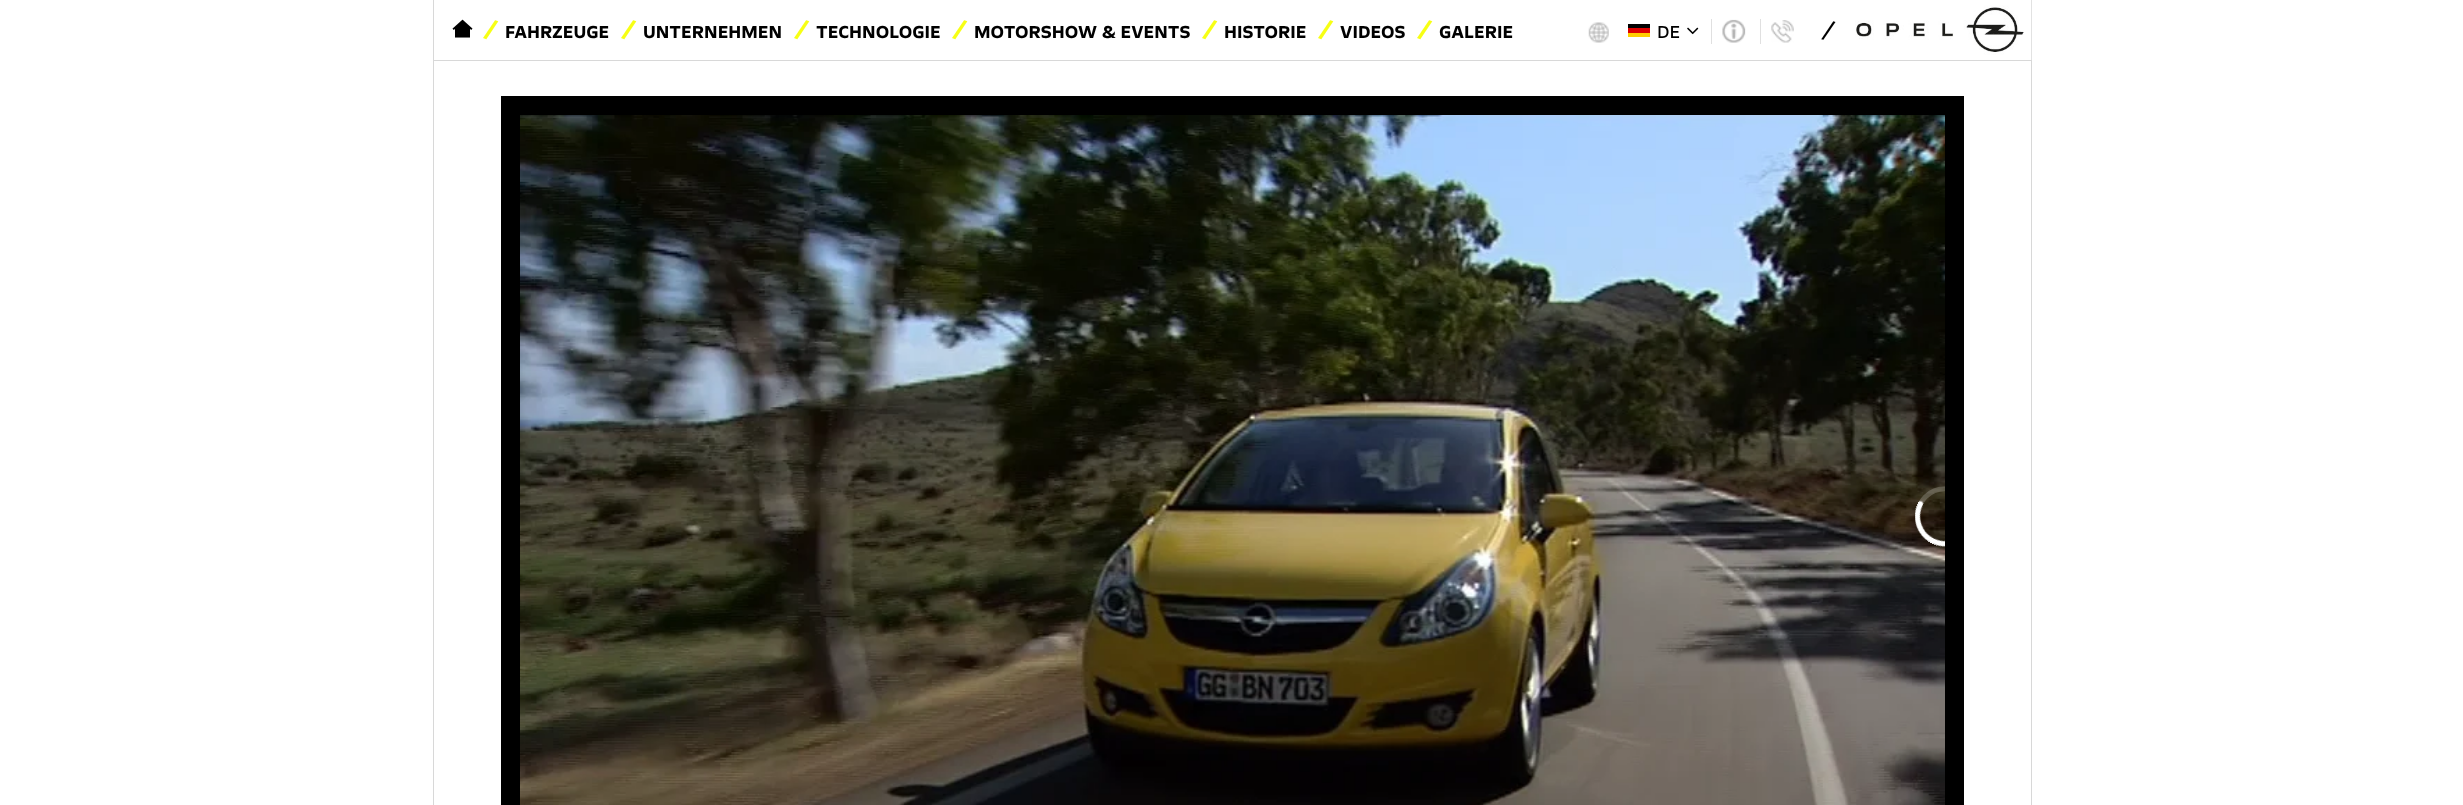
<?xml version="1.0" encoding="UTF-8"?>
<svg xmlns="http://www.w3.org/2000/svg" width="2463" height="805">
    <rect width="100%" height="100%" fill="#FFFFFF"/>
    <rect x="2031" y="0" width="1" height="805" fill="#D8D8D8"/>
    <rect x="433" y="0" width="1" height="805" fill="#D8D8D8"/>
    <rect x="434" y="60" width="1597" height="1" fill="#D8D8D8"/>
    <image x="452" y="19" width="21" height="19" href="img_01.png"/>
    <text x="484" y="36" transform="rotate(18 484 36)" font-family="'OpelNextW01'" font-size="28" font-weight="700" fill="#F7FF14">/</text>
    <text x="505" y="38" font-family="'OpelNextW01'" font-size="20" font-weight="700" fill="#000000">FAHRZEUGE</text>
    <text x="622" y="36" transform="rotate(18 622 36)" font-family="'OpelNextW01'" font-size="28" font-weight="700" fill="#F7FF14">/</text>
    <text x="643" y="38" font-family="'OpelNextW01'" font-size="20" font-weight="700" fill="#000000">UNTERNEHMEN</text>
    <text x="795" y="36" transform="rotate(18 795 36)" font-family="'OpelNextW01'" font-size="28" font-weight="700" fill="#F7FF14">/</text>
    <text x="816" y="38" font-family="'OpelNextW01'" font-size="20" font-weight="700" fill="#000000">TECHNOLOGIE</text>
    <text x="953" y="36" transform="rotate(18 953 36)" font-family="'OpelNextW01'" font-size="28" font-weight="700" fill="#F7FF14">/</text>
    <text x="974" y="38" font-family="'OpelNextW01'" font-size="20" font-weight="700" fill="#000000">MOTORSHOW &amp; EVENTS</text>
    <text x="1203" y="36" transform="rotate(18 1203 36)" font-family="'OpelNextW01'" font-size="28" font-weight="700" fill="#F7FF14">/</text>
    <text x="1224" y="38" font-family="'OpelNextW01'" font-size="20" font-weight="700" fill="#000000">HISTORIE</text>
    <text x="1319" y="36" transform="rotate(18 1319 36)" font-family="'OpelNextW01'" font-size="28" font-weight="700" fill="#F7FF14">/</text>
    <text x="1340" y="38" font-family="'OpelNextW01'" font-size="20" font-weight="700" fill="#000000">VIDEOS</text>
    <text x="1418" y="36" transform="rotate(18 1418 36)" font-family="'OpelNextW01'" font-size="28" font-weight="700" fill="#F7FF14">/</text>
    <text x="1439" y="38" font-family="'OpelNextW01'" font-size="20" font-weight="700" fill="#000000">GALERIE</text>
    <image x="1588" y="22" width="21" height="21" href="img_02.png"/>
    <text x="1657" y="38" font-family="'OpelNextW01'" font-size="20" fill="#000000">DE</text>
    <rect x="1628" y="24" width="22" height="4" fill="#000000"/>
    <rect x="1628" y="28" width="22" height="5" fill="#DD0000"/>
    <rect x="1628" y="33" width="22" height="4" fill="#FFCE00"/>
    <image x="1687" y="27" width="12" height="8" href="img_03.png"/>
    <image x="1722" y="19" width="24" height="24" href="img_04.png"/>
    <rect x="1711" y="19" width="1" height="25" fill="#E0E0E0"/>
    <image x="1771" y="20" width="23" height="23" href="img_05.png"/>
    <rect x="1760" y="19" width="1" height="25" fill="#E0E0E0"/>
    <text x="1822" y="37" transform="rotate(18 1822 37)" font-family="'OpelNextW01'" font-size="28" fill="#000000">/</text>
    <image x="1855" y="0" width="177" height="60" href="img_06.png"/>
    <rect x="501" y="96" width="1463" height="709" fill="#000000"/>
    <image x="520" y="115" width="1425" height="690" href="img_07.png"/>
</svg>
